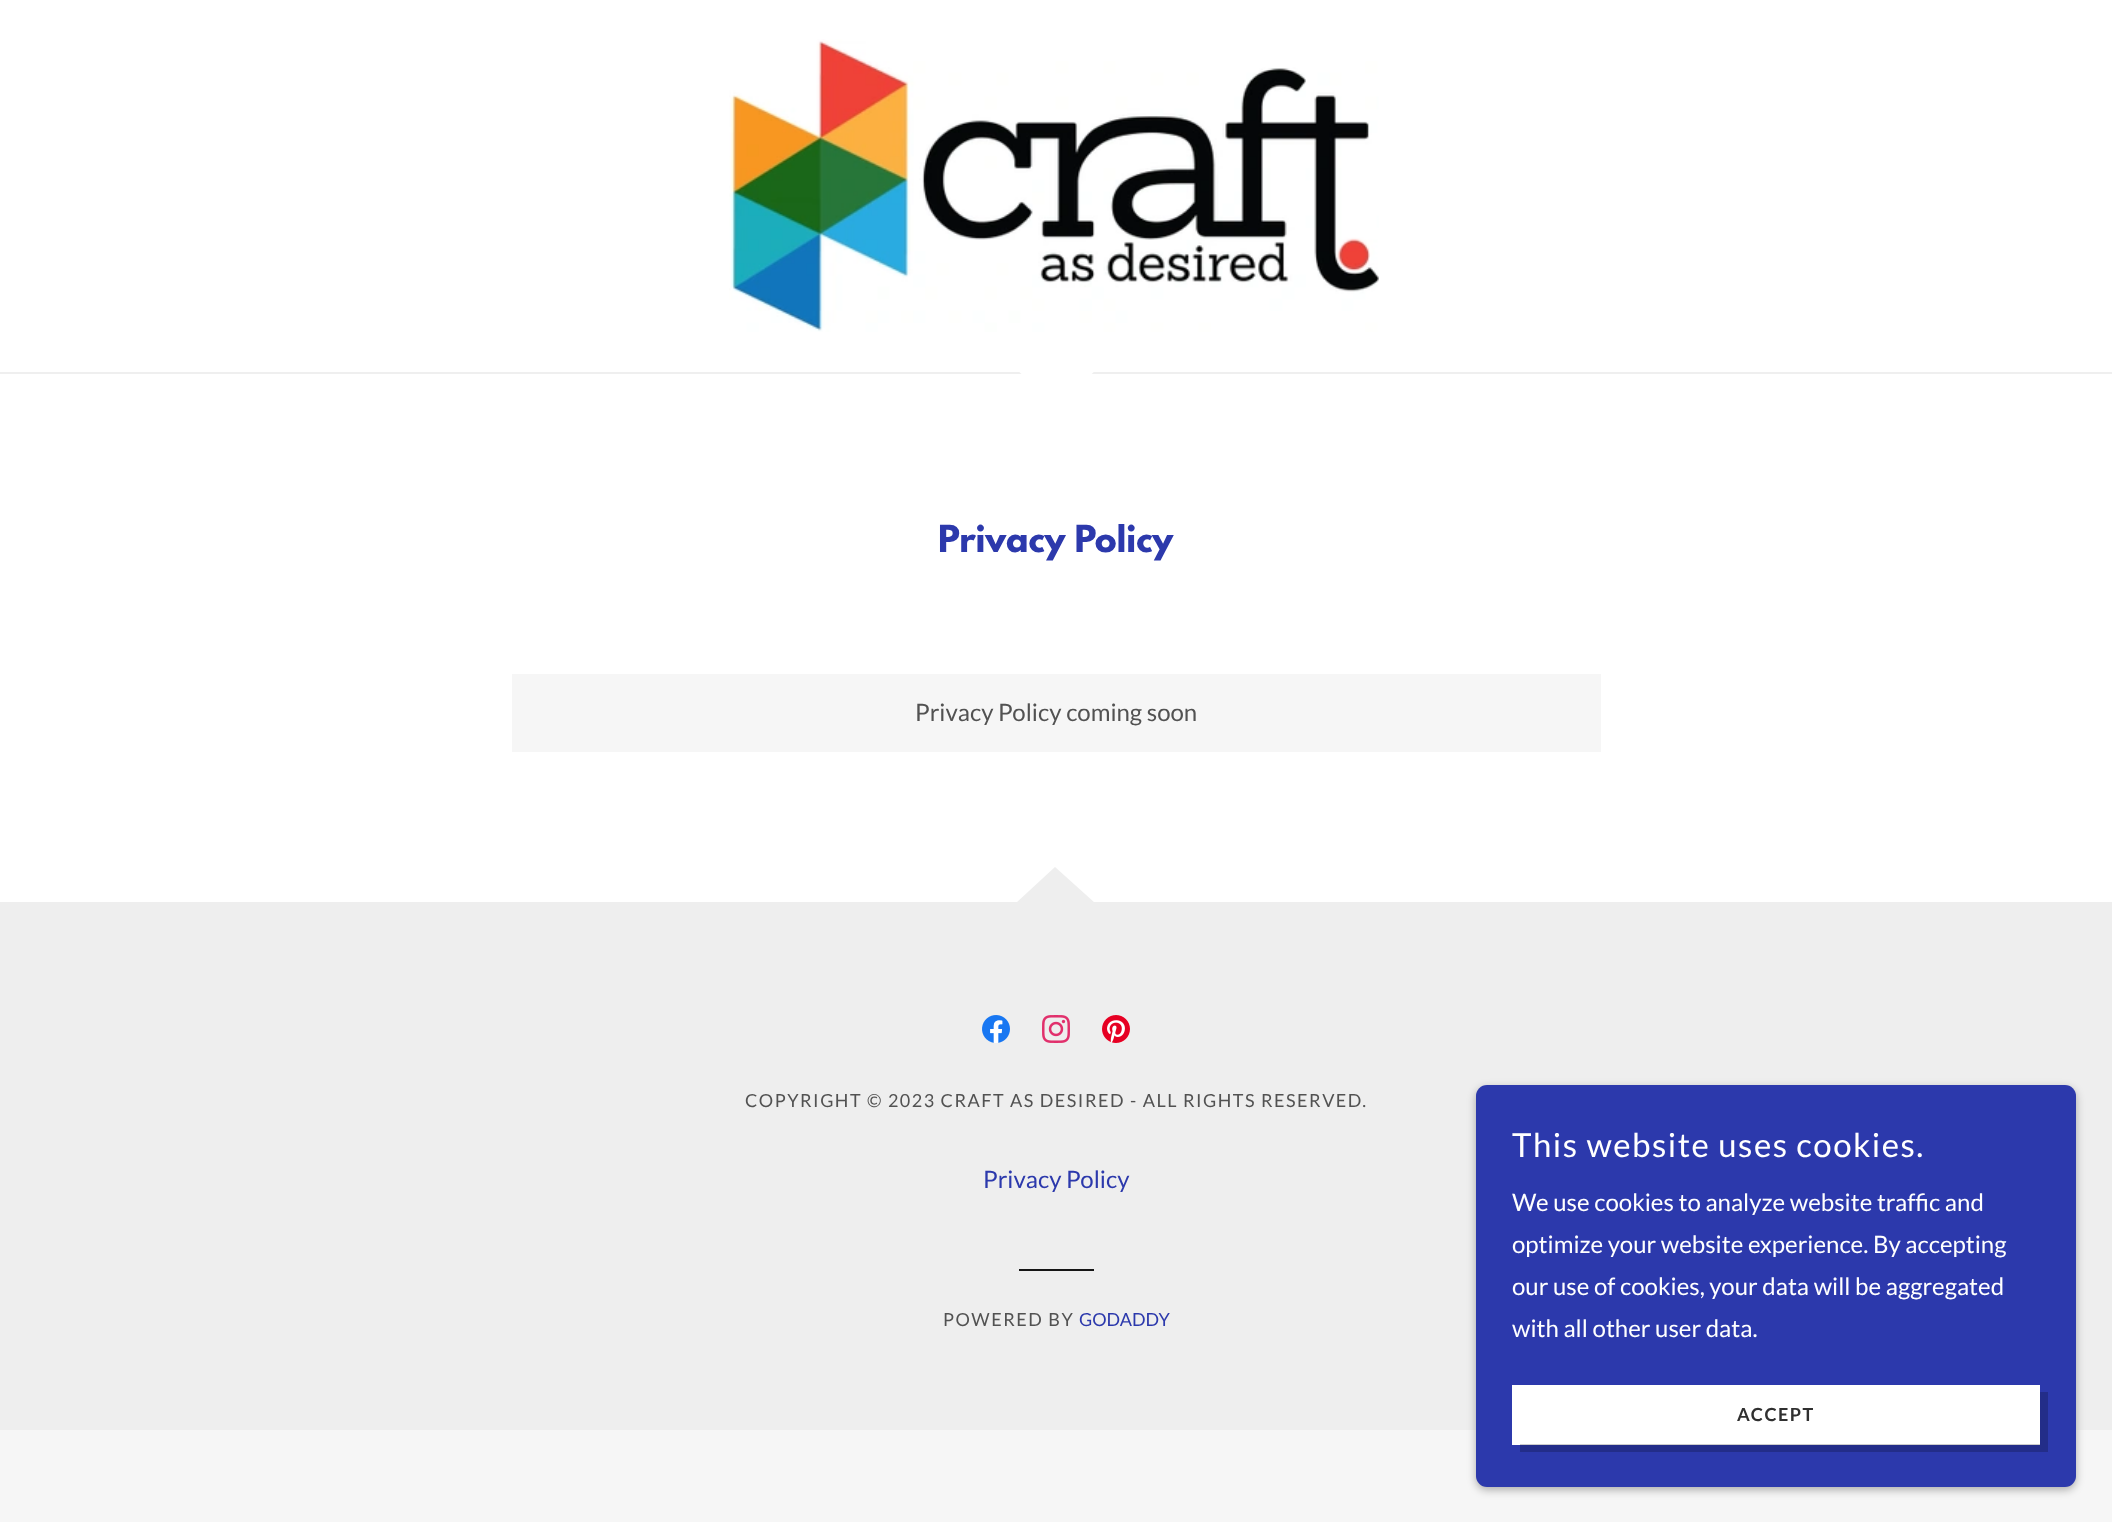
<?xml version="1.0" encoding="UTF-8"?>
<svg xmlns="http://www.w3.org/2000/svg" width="2112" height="1522">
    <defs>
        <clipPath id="clip1"><rect x="1017" y="371" width="80" height="36"/></clipPath>
        <clipPath id="clip2"><rect x="222" y="524" width="1668" height="42"/></clipPath>
        <filter id="blur1" x="-50%" y="-200%" width="200%" height="500%"><feGaussianBlur stdDeviation="4.5"/></filter>
    </defs>
    <rect width="100%" height="100%" fill="#F6F6F6"/>
    <rect x="0" y="0" width="2112" height="372" fill="#FFFFFF"/>
    <rect x="0" y="372" width="2112" height="2" fill="#EFEFEF"/>
    <image x="729" y="39" width="650" height="293" href="img_01.png"/>
    <rect x="0" y="374" width="2112" height="528" fill="#FFFFFF"/>
    <g clip-path="url(#clip1)">
        <path d="M 1057 406 L 1096 370 H 1017 Z" fill="#FFFFFF" fill-rule="evenodd"/>
    </g>
    <g clip-path="url(#clip2)">
        <text x="938" y="552" font-family="League Spartan" font-size="33" font-weight="700" fill="#2C39AC">Privacy Policy</text>
    </g>
    <rect x="512" y="674" width="1089" height="78" fill="#F6F6F6"/>
    <text x="915" y="721" font-family="Lato" font-size="24" fill="#525252">Privacy Policy coming soon</text>
    <rect x="0" y="902" width="2112" height="528" fill="#EEEEEE"/>
    <path d="M 1055 867 L 1016 903 H 1095 Z" fill="#EEEEEE" fill-rule="evenodd"/>
    <image x="982" y="1015" width="28" height="28" href="img_02.png"/>
    <image x="1042" y="1015" width="28" height="28" href="img_03.png"/>
    <image x="1102" y="1015" width="28" height="28" href="img_04.png"/>
    <text x="745" y="1107" font-family="Lato" font-size="18" letter-spacing="1.5" fill="#525252">COPYRIGHT © 2023 CRAFT AS DESIRED - ALL RIGHTS RESERVED.</text>
    <text x="983" y="1188" font-family="Lato" font-size="24" fill="#2C39AC">Privacy Policy</text>
    <rect x="1019" y="1269" width="75" height="2" fill="#151515"/>
    <text x="943" y="1326" font-family="Lato" font-size="18" letter-spacing="1.5" fill="#525252">POWERED BY</text>
    <text x="1079" y="1326" font-family="Lato" font-size="18" fill="#2C39AC">GODADDY</text>
    <rect x="1476" y="1088" width="600" height="402" rx="11" fill="#000000" fill-opacity="0.3" filter="url(#blur1)"/>
    <rect x="1476" y="1085" width="600" height="402" rx="11" fill="#2C39AC"/>
    <text x="1512" y="1157" font-family="Lato" font-size="33" letter-spacing="1.5" fill="#FFFFFF">This website uses cookies.</text>
    <text font-family="Lato" font-size="24" fill="#FFFFFF">
        <tspan x="1512" y="1211">We use cookies to analyze website traffic and</tspan>
        <tspan x="1512" y="1253">optimize your website experience. By accepting</tspan>
        <tspan x="1512" y="1295">our use of cookies, your data will be aggregated</tspan>
        <tspan x="1512" y="1337">with all other user data.</tspan>
    </text>
    <rect x="1512" y="1385" width="528" height="60" fill="#FFFFFF"/>
    <path d="M 1520 1444 V 1452 H 2048 V 1392 H 2040 V 1444 Z" fill="#000000" fill-opacity="0.2"/>
    <text x="1737" y="1421" font-family="Lato" font-size="18" font-weight="700" letter-spacing="1.5" fill="#303030">ACCEPT</text>
</svg>
